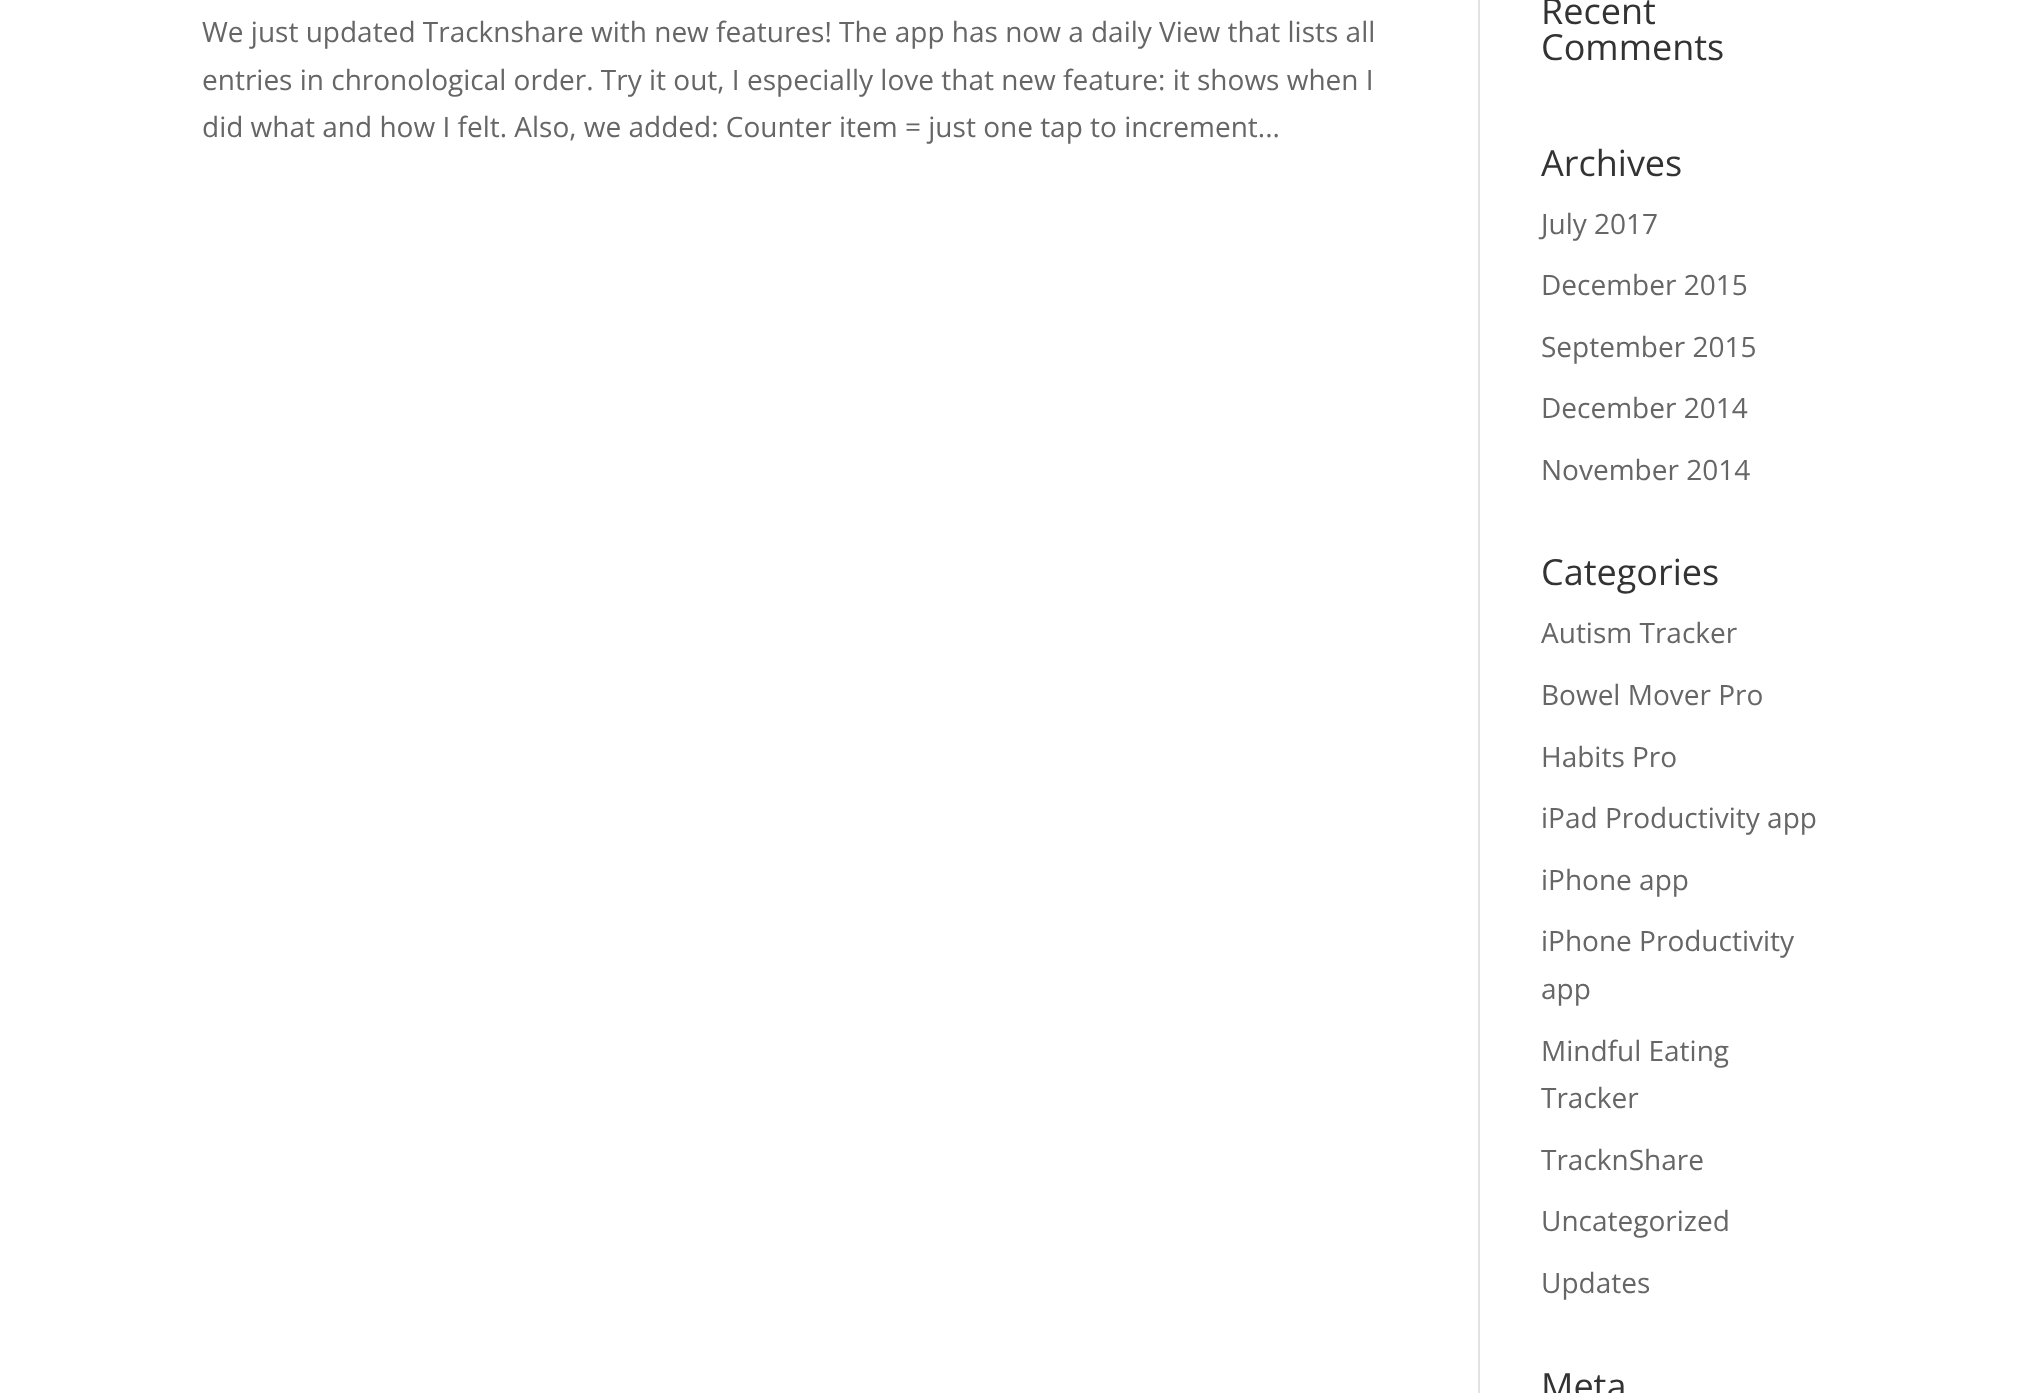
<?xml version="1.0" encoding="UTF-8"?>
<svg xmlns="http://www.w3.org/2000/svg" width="2020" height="1393">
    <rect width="100%" height="100%" fill="#FFFFFF"/>
    <text font-family="Open Sans" font-size="28" fill="#666666">
        <tspan x="202" y="42">We just updated Tracknshare with new features! The app has now a daily View that lists all</tspan>
        <tspan x="202" y="90">entries in chronological order. Try it out, I especially love that new feature: it shows when I</tspan>
        <tspan x="202" y="137">did what and how I felt. Also, we added: Counter item = just one tap to increment...</tspan>
    </text>
    <text font-family="Open Sans" font-size="36" fill="#333333">
        <tspan x="1541" y="24">Recent</tspan>
        <tspan x="1541" y="60">Comments</tspan>
    </text>
    <text x="1541" y="176" font-family="Open Sans" font-size="36" fill="#333333">Archives</text>
    <text x="1541" y="234" font-family="Open Sans" font-size="28" fill="#666666">July 2017</text>
    <text x="1541" y="295" font-family="Open Sans" font-size="28" fill="#666666">December 2015</text>
    <text x="1541" y="357" font-family="Open Sans" font-size="28" fill="#666666">September 2015</text>
    <text x="1541" y="418" font-family="Open Sans" font-size="28" fill="#666666">December 2014</text>
    <text x="1541" y="480" font-family="Open Sans" font-size="28" fill="#666666">November 2014</text>
    <text x="1541" y="585" font-family="Open Sans" font-size="36" fill="#333333">Categories</text>
    <text x="1541" y="643" font-family="Open Sans" font-size="28" fill="#666666">Autism Tracker</text>
    <text x="1541" y="705" font-family="Open Sans" font-size="28" fill="#666666">Bowel Mover Pro</text>
    <text x="1541" y="767" font-family="Open Sans" font-size="28" fill="#666666">Habits Pro</text>
    <text x="1541" y="828" font-family="Open Sans" font-size="28" fill="#666666">iPad Productivity app</text>
    <text x="1541" y="890" font-family="Open Sans" font-size="28" fill="#666666">iPhone app</text>
    <text font-family="Open Sans" font-size="28" fill="#666666">
        <tspan x="1541" y="951">iPhone Productivity</tspan>
        <tspan x="1541" y="999">app</tspan>
    </text>
    <text font-family="Open Sans" font-size="28" fill="#666666">
        <tspan x="1541" y="1061">Mindful Eating</tspan>
        <tspan x="1541" y="1108">Tracker</tspan>
    </text>
    <text x="1541" y="1170" font-family="Open Sans" font-size="28" fill="#666666">TracknShare</text>
    <text x="1541" y="1231" font-family="Open Sans" font-size="28" fill="#666666">Uncategorized</text>
    <text x="1541" y="1293" font-family="Open Sans" font-size="28" fill="#666666">Updates</text>
    <text x="1541" y="1399" font-family="Open Sans" font-size="36" fill="#333333">Meta</text>
    <rect x="1478" y="0" width="2" height="1393" fill="#E2E2E2"/>
</svg>
